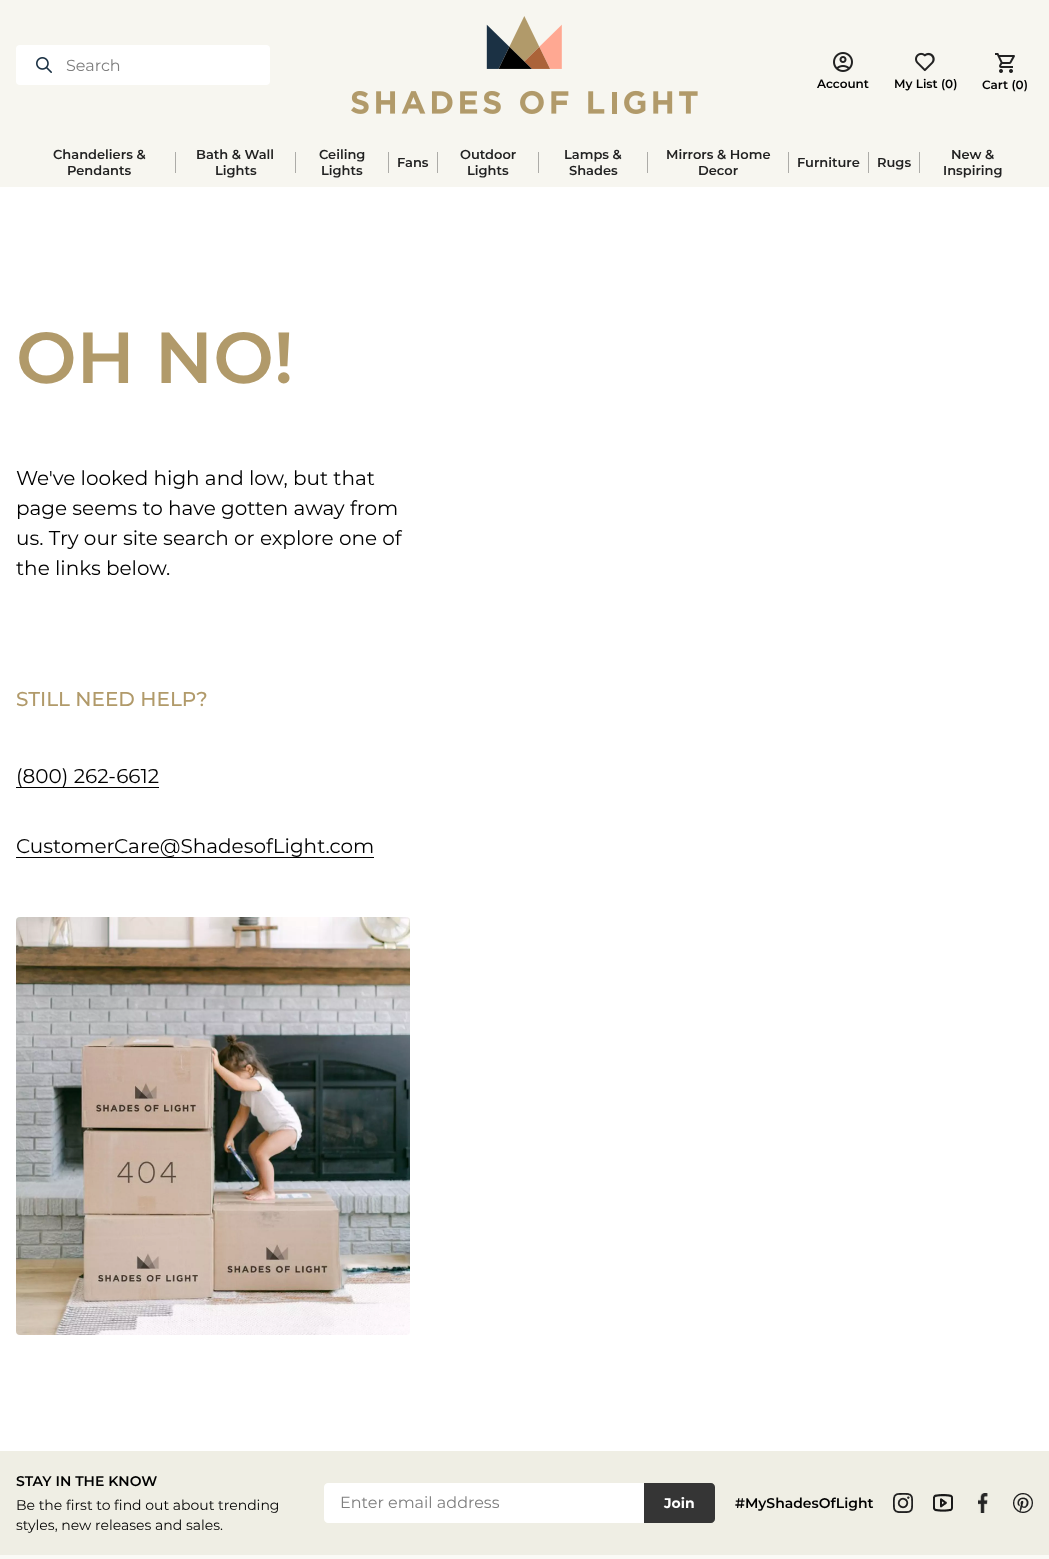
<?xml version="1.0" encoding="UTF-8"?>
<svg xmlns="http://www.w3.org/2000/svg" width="1049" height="1559">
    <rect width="100%" height="100%" fill="#FFFFFF"/>
    <rect x="0" y="0" width="1049" height="187" fill="#F7F6F0"/>
    <rect x="16" y="45" width="254" height="40" rx="4" fill="#FFFFFF"/>
    <image x="36" y="57" width="16" height="16" href="img_01.png"/>
    <text x="66" y="71" font-family="Montserrat" font-size="16" fill="#7F7F7F">Search</text>
    <image x="351" y="16" width="347" height="98" href="img_02.png"/>
    <image x="833" y="52" width="20" height="20" href="img_03.png"/>
    <text x="817" y="88" font-family="Montserrat" font-size="12" font-weight="600" fill="#000000">Account</text>
    <image x="915" y="52" width="20" height="20" href="img_04.png"/>
    <text x="894" y="88" font-family="Montserrat" font-size="12" font-weight="600" fill="#000000">My List (0)</text>
    <image x="995" y="53" width="20" height="20" href="img_05.png"/>
    <text x="982" y="89" font-family="Montserrat" font-size="12" font-weight="600" fill="#000000">Cart (0)</text>
    <text x="53" y="159" font-family="Montserrat" font-size="13" font-weight="600" fill="#222222">Chandeliers &amp;</text>
    <text x="67" y="175" font-family="Montserrat" font-size="13" font-weight="600" fill="#222222">Pendants</text>
    <rect x="175" y="152" width="1" height="21" fill="#ADACA8"/>
    <text x="196" y="159" font-family="Montserrat" font-size="13" font-weight="600" fill="#222222">Bath &amp; Wall</text>
    <text x="215" y="175" font-family="Montserrat" font-size="13" font-weight="600" fill="#222222">Lights</text>
    <rect x="295" y="152" width="1" height="21" fill="#ADACA8"/>
    <text x="319" y="159" font-family="Montserrat" font-size="13" font-weight="600" fill="#222222">Ceiling</text>
    <text x="321" y="175" font-family="Montserrat" font-size="13" font-weight="600" fill="#222222">Lights</text>
    <rect x="388" y="152" width="1" height="21" fill="#ADACA8"/>
    <text x="397" y="167" font-family="Montserrat" font-size="13" font-weight="600" fill="#222222">Fans</text>
    <rect x="437" y="152" width="1" height="21" fill="#ADACA8"/>
    <text x="460" y="159" font-family="Montserrat" font-size="13" font-weight="600" fill="#222222">Outdoor</text>
    <text x="467" y="175" font-family="Montserrat" font-size="13" font-weight="600" fill="#222222">Lights</text>
    <rect x="538" y="152" width="1" height="21" fill="#ADACA8"/>
    <text x="564" y="159" font-family="Montserrat" font-size="13" font-weight="600" fill="#222222">Lamps &amp;</text>
    <text x="569" y="175" font-family="Montserrat" font-size="13" font-weight="600" fill="#222222">Shades</text>
    <rect x="647" y="152" width="1" height="21" fill="#ADACA8"/>
    <text x="666" y="159" font-family="Montserrat" font-size="13" font-weight="600" fill="#222222">Mirrors &amp; Home</text>
    <text x="698" y="175" font-family="Montserrat" font-size="13" font-weight="600" fill="#222222">Decor</text>
    <rect x="788" y="152" width="1" height="21" fill="#ADACA8"/>
    <text x="797" y="167" font-family="Montserrat" font-size="13" font-weight="600" fill="#222222">Furniture</text>
    <rect x="868" y="152" width="1" height="21" fill="#ADACA8"/>
    <text x="877" y="167" font-family="Montserrat" font-size="13" font-weight="600" fill="#222222">Rugs</text>
    <rect x="919" y="152" width="1" height="21" fill="#ADACA8"/>
    <text x="951" y="159" font-family="Montserrat" font-size="13" font-weight="600" fill="#222222">New &amp;</text>
    <text x="943" y="175" font-family="Montserrat" font-size="13" font-weight="600" fill="#222222">Inspiring</text>
    <text x="16" y="383" font-family="Montserrat" font-size="72" font-weight="600" fill="#B19A6A">OH NO!</text>
    <text font-family="Montserrat" font-size="20" fill="#000000">
        <tspan x="16" y="485">We've looked high and low, but that</tspan>
        <tspan x="16" y="515">page seems to have gotten away from</tspan>
        <tspan x="16" y="545">us. Try our site search or explore one of</tspan>
        <tspan x="16" y="575">the links below.</tspan>
    </text>
    <text x="16" y="706" font-family="Montserrat" font-size="20" font-weight="500" fill="#B19A6A">STILL NEED HELP?</text>
    <text x="16" y="783" font-family="Montserrat" font-size="20" fill="#000000">(800) 262-6612</text>
    <rect x="16" y="787" width="143" height="1" fill="#000000"/>
    <text x="16" y="853" font-family="Montserrat" font-size="20" fill="#000000">CustomerCare@ShadesofLight.com</text>
    <rect x="16" y="857" width="358" height="1" fill="#000000"/>
    <image x="16" y="917" width="394" height="418" href="img_06.png"/>
    <rect x="0" y="1555" width="1049" height="4" fill="#FAFAF6"/>
    <rect x="0" y="1451" width="1049" height="104" fill="#EFEEE4"/>
    <text x="16" y="1486" font-family="Montserrat" font-size="14" font-weight="600" fill="#000000">STAY IN THE KNOW</text>
    <text font-family="Montserrat" font-size="14" fill="#000000">
        <tspan x="16" y="1510">Be the first to find out about trending</tspan>
        <tspan x="16" y="1530">styles, new releases and sales.</tspan>
    </text>
    <path d="M 328 1483 H 644 V 1523 H 328 C 326 1523 324 1521 324 1519 V 1487 C 324 1485 326 1483 328 1483 Z" fill="#FFFFFF"/>
    <text x="340" y="1508" font-family="Montserrat" font-size="16" fill="#7F7F7F">Enter email address</text>
    <path d="M 644 1483 H 711 C 713 1483 715 1485 715 1487 V 1519 C 715 1521 713 1523 711 1523 H 644 Z" fill="#353535"/>
    <text x="664" y="1508" font-family="Montserrat" font-size="14" font-weight="700" fill="#FFFFFF">Join</text>
    <text x="735" y="1508" font-family="Montserrat" font-size="14" font-weight="600" fill="#000000">#MyShadesOfLight</text>
    <image x="893" y="1493" width="20" height="20" href="img_07.png"/>
    <image x="933" y="1494" width="20" height="18" href="img_08.png"/>
    <image x="978" y="1493" width="10" height="20" href="img_09.png"/>
    <image x="1013" y="1493" width="20" height="20" href="img_10.png"/>
</svg>
